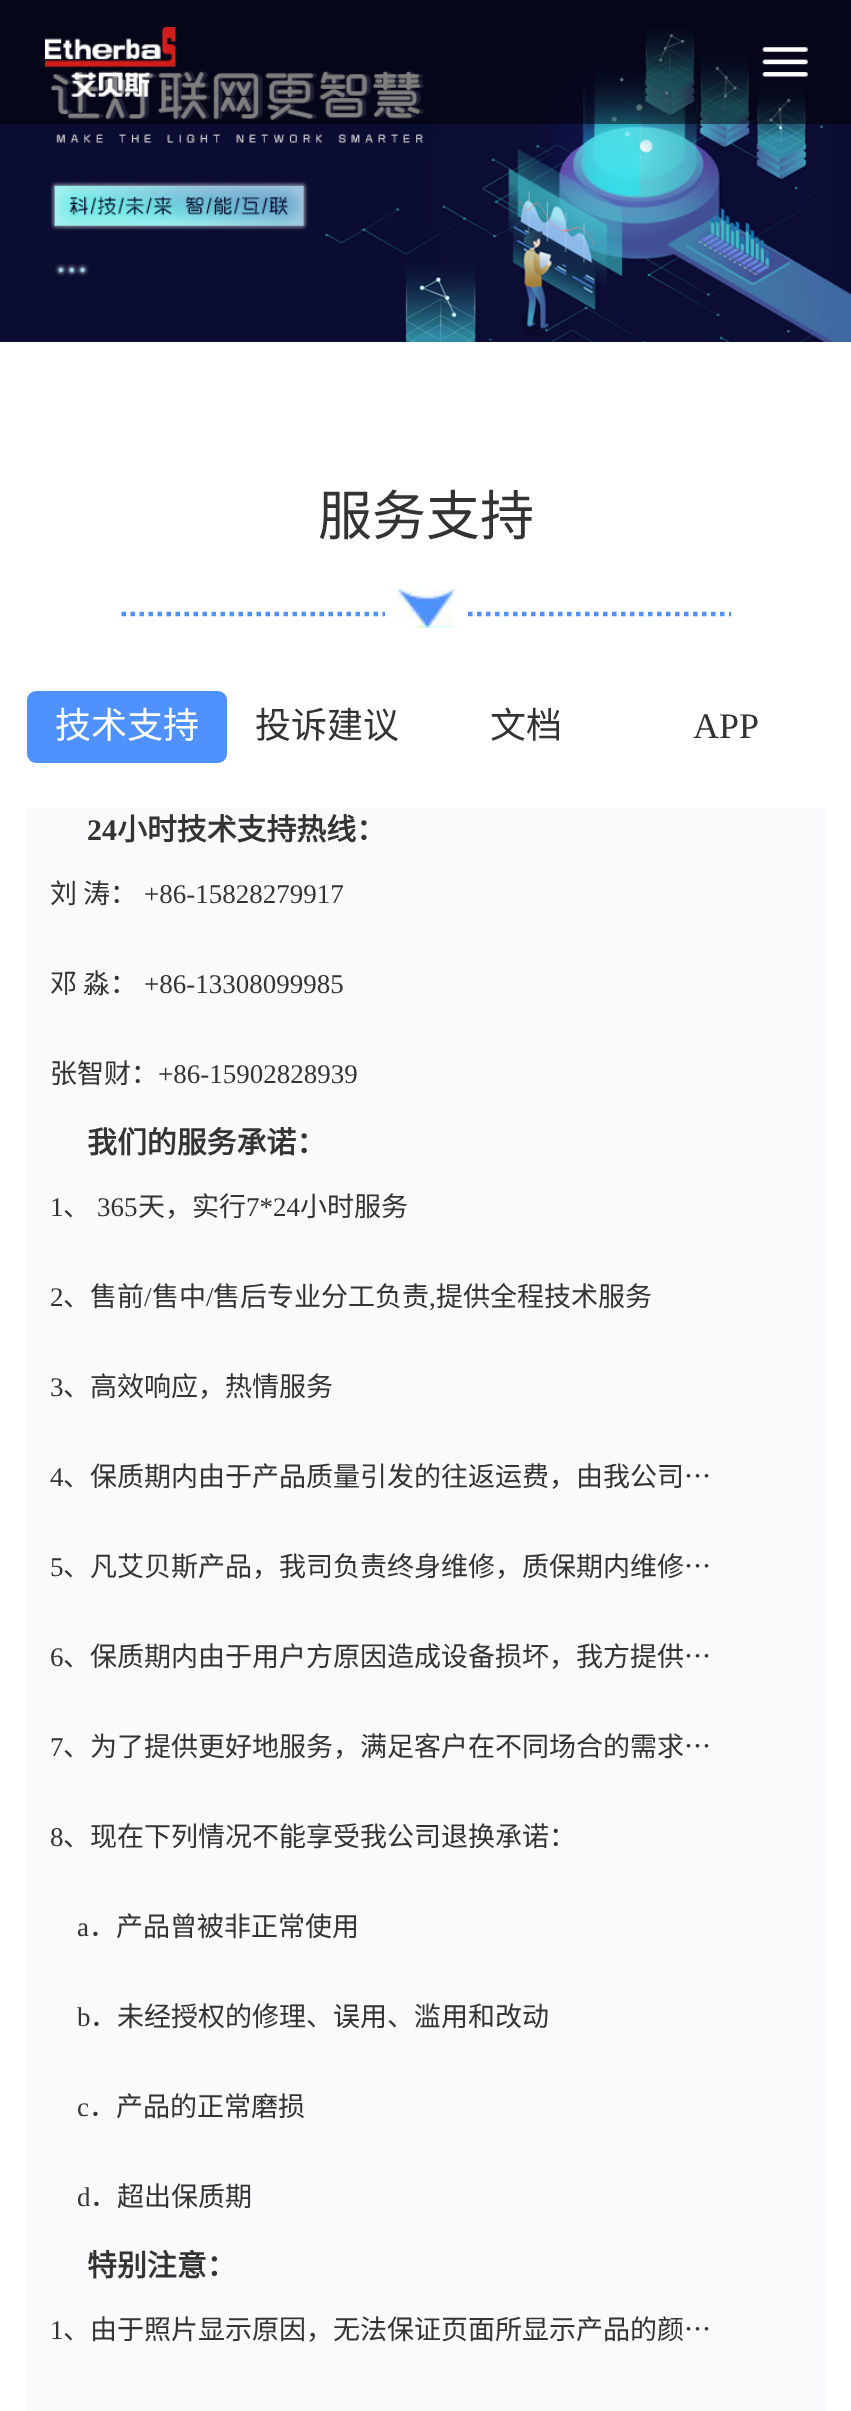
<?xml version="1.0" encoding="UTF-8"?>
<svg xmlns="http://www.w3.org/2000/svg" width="851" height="2411">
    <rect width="100%" height="100%" fill="#FFFFFF"/>
    <image x="0" y="0" width="851" height="342" href="img_03.png"/>
    <rect x="0" y="0" width="851" height="124" fill="#000000" fill-opacity="0.5"/>
    <image x="45" y="27" width="131" height="70" href="img_01.png"/>
    <image x="762" y="47" width="46" height="30" href="img_02.png"/>
    <text x="318" y="535" font-family="Noto Sans CJK SC" font-size="54" fill="#333333">服务支持</text>
    <path d="M 121.5 614 H 385" fill="none" stroke="#4E91FF" stroke-width="4.5" stroke-dasharray="4.5 4.5"/>
    <image x="398" y="589" width="57" height="39" href="img_04.png"/>
    <path d="M 468 614 H 731" fill="none" stroke="#4E91FF" stroke-width="4.5" stroke-dasharray="4.5 4.5"/>
    <rect x="27" y="691" width="200" height="72" rx="9" fill="#4E91FF"/>
    <text x="55" y="738" font-family="Noto Sans CJK SC" font-size="36" fill="#FFFFFF">技术支持</text>
    <text x="255" y="738" font-family="Noto Sans CJK SC" font-size="36" fill="#333333">投诉建议</text>
    <text x="490" y="738" font-family="Noto Sans CJK SC" font-size="36" fill="#333333">文档</text>
    <text x="693" y="738" font-family="Liberation Serif" font-size="36" fill="#333333">APP</text>
    <rect x="27" y="808" width="799" height="1603" fill="#FAFAFC"/>
    <text x="87" y="840" font-family="Liberation Serif" font-size="29.9" font-weight="700" fill="#333333">24</text>
    <text x="117" y="840" font-family="Noto Sans CJK SC" font-size="29.9" font-weight="700" fill="#333333">小时技术支持热线：</text>
    <text x="50" y="903" font-family="Noto Sans CJK SC" font-size="27" fill="#333333">刘 涛：</text>
    <text x="144" y="903" font-family="Liberation Serif" font-size="27" fill="#333333">+86-15828279917</text>
    <text x="50" y="993" font-family="Noto Sans CJK SC" font-size="27" fill="#333333">邓 淼：</text>
    <text x="144" y="993" font-family="Liberation Serif" font-size="27" fill="#333333">+86-13308099985</text>
    <text x="50" y="1083" font-family="Noto Sans CJK SC" font-size="27" fill="#333333">张智财：</text>
    <text x="158" y="1083" font-family="Liberation Serif" font-size="27" fill="#333333">+86-15902828939</text>
    <text x="87" y="1153" font-family="Noto Sans CJK SC" font-size="29.9" font-weight="700" fill="#333333">我们的服务承诺：</text>
    <text x="50" y="1216" font-family="Liberation Serif" font-size="27" fill="#333333">1</text>
    <text x="63" y="1216" font-family="Noto Sans CJK SC" font-size="27" fill="#333333">、</text>
    <text x="97" y="1216" font-family="Liberation Serif" font-size="27" fill="#333333">365</text>
    <text x="138" y="1216" font-family="Noto Sans CJK SC" font-size="27" fill="#333333">天，实行</text>
    <text x="246" y="1216" font-family="Liberation Serif" font-size="27" fill="#333333">7*24</text>
    <text x="300" y="1216" font-family="Noto Sans CJK SC" font-size="27" fill="#333333">小时服务</text>
    <text x="50" y="1306" font-family="Liberation Serif" font-size="27" fill="#333333">2</text>
    <text x="63" y="1306" font-family="Noto Sans CJK SC" font-size="27" fill="#333333">、售前</text>
    <text x="144" y="1306" font-family="Liberation Serif" font-size="27" fill="#333333">/</text>
    <text x="152" y="1306" font-family="Noto Sans CJK SC" font-size="27" fill="#333333">售中</text>
    <text x="206" y="1306" font-family="Liberation Serif" font-size="27" fill="#333333">/</text>
    <text x="213" y="1306" font-family="Noto Sans CJK SC" font-size="27" fill="#333333">售后专业分工负责</text>
    <text x="429" y="1306" font-family="Liberation Serif" font-size="27" fill="#333333">,</text>
    <text x="436" y="1306" font-family="Noto Sans CJK SC" font-size="27" fill="#333333">提供全程技术服务</text>
    <text x="50" y="1396" font-family="Liberation Serif" font-size="27" fill="#333333">3</text>
    <text x="63" y="1396" font-family="Noto Sans CJK SC" font-size="27" fill="#333333">、高效响应，热情服务</text>
    <text x="50" y="1486" font-family="Liberation Serif" font-size="27" fill="#333333">4</text>
    <text x="63" y="1486" font-family="Noto Sans CJK SC" font-size="27" fill="#333333">、保质期内由于产品质量引发的往返运费，由我公司…</text>
    <text x="50" y="1576" font-family="Liberation Serif" font-size="27" fill="#333333">5</text>
    <text x="63" y="1576" font-family="Noto Sans CJK SC" font-size="27" fill="#333333">、凡艾贝斯产品，我司负责终身维修，质保期内维修…</text>
    <text x="50" y="1666" font-family="Liberation Serif" font-size="27" fill="#333333">6</text>
    <text x="63" y="1666" font-family="Noto Sans CJK SC" font-size="27" fill="#333333">、保质期内由于用户方原因造成设备损坏，我方提供…</text>
    <text x="50" y="1756" font-family="Liberation Serif" font-size="27" fill="#333333">7</text>
    <text x="63" y="1756" font-family="Noto Sans CJK SC" font-size="27" fill="#333333">、为了提供更好地服务，满足客户在不同场合的需求…</text>
    <text x="50" y="1846" font-family="Liberation Serif" font-size="27" fill="#333333">8</text>
    <text x="63" y="1846" font-family="Noto Sans CJK SC" font-size="27" fill="#333333">、现在下列情况不能享受我公司退换承诺：</text>
    <text x="77" y="1936" font-family="Liberation Serif" font-size="27" fill="#333333">a</text>
    <text x="89" y="1936" font-family="Noto Sans CJK SC" font-size="27" fill="#333333">．产品曾被非正常使用</text>
    <text x="77" y="2026" font-family="Liberation Serif" font-size="27" fill="#333333">b</text>
    <text x="90" y="2026" font-family="Noto Sans CJK SC" font-size="27" fill="#333333">．未经授权的修理、误用、滥用和改动</text>
    <text x="77" y="2116" font-family="Liberation Serif" font-size="27" fill="#333333">c</text>
    <text x="89" y="2116" font-family="Noto Sans CJK SC" font-size="27" fill="#333333">．产品的正常磨损</text>
    <text x="77" y="2206" font-family="Liberation Serif" font-size="27" fill="#333333">d</text>
    <text x="90" y="2206" font-family="Noto Sans CJK SC" font-size="27" fill="#333333">．超出保质期</text>
    <text x="87" y="2276" font-family="Noto Sans CJK SC" font-size="29.9" font-weight="700" fill="#333333">特别注意：</text>
    <text x="50" y="2339" font-family="Liberation Serif" font-size="27" fill="#333333">1</text>
    <text x="63" y="2339" font-family="Noto Sans CJK SC" font-size="27" fill="#333333">、由于照片显示原因，无法保证页面所显示产品的颜…</text>
</svg>
